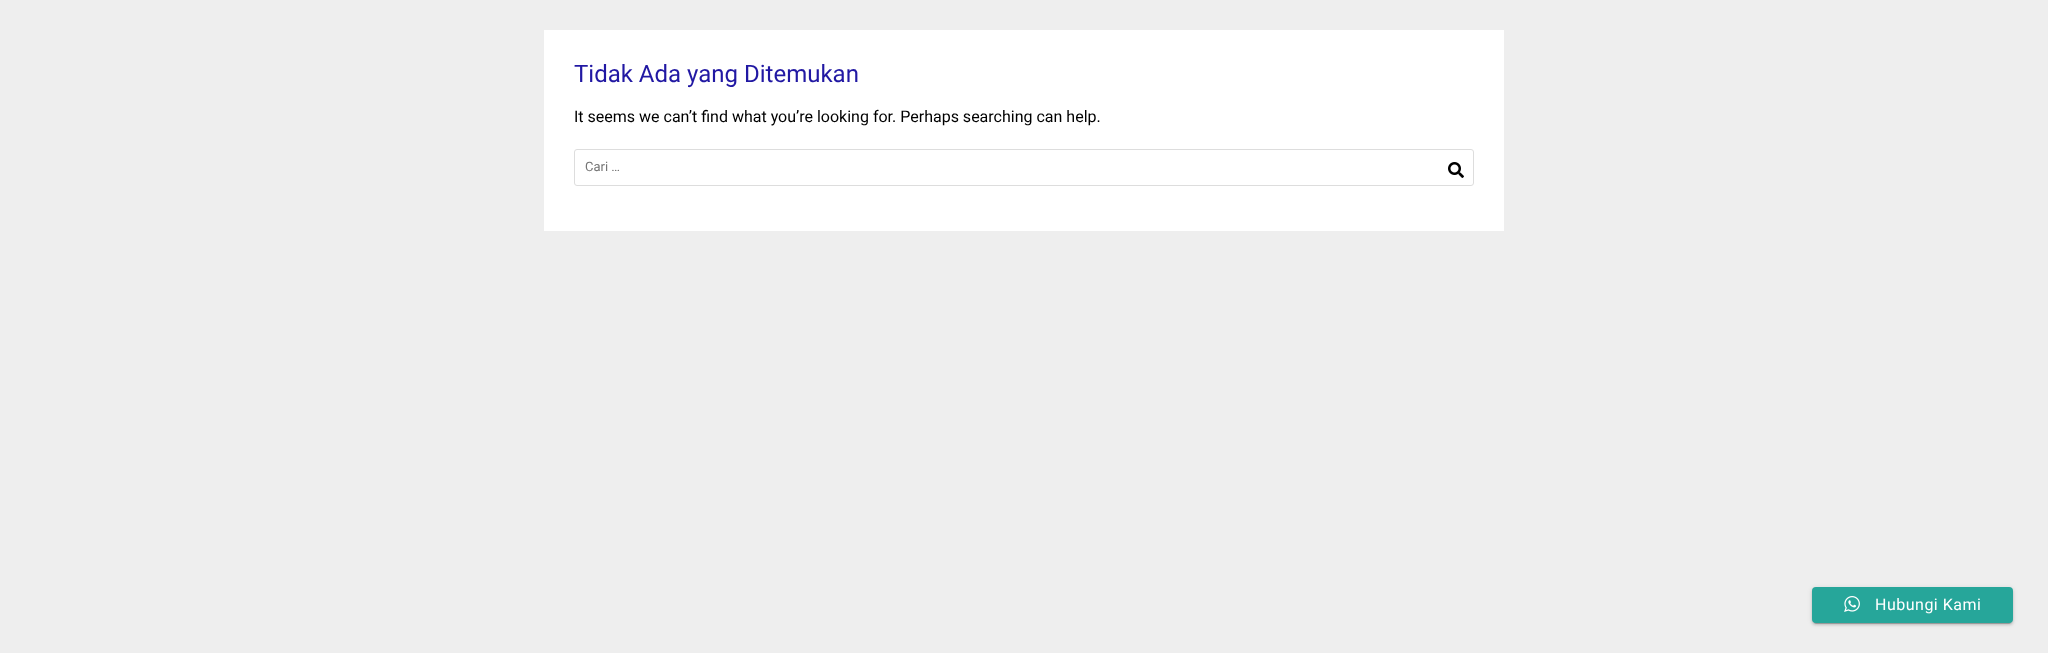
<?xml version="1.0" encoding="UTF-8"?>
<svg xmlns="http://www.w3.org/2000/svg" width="2048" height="653">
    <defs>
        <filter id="blur1" x="-50%" y="-200%" width="200%" height="500%"><feGaussianBlur stdDeviation="0.5"/></filter>
        <filter id="blur2" x="-50%" y="-200%" width="200%" height="500%"><feGaussianBlur stdDeviation="2.5"/></filter>
        <filter id="blur3" x="-50%" y="-200%" width="200%" height="500%"><feGaussianBlur stdDeviation="1"/></filter>
    </defs>
    <rect width="100%" height="100%" fill="#EEEEEE"/>
    <rect x="544" y="30" width="960" height="201" fill="#FFFFFF"/>
    <text x="574" y="82" font-family="Roboto" font-size="24" fill="#2118A3">Tidak Ada yang Ditemukan</text>
    <text x="574" y="122" font-family="Roboto" font-size="16" fill="#000000">It seems we can’t find what you’re looking for. Perhaps searching can help.</text>
    <rect x="574.5" y="149.5" width="899" height="36" rx="2.5" fill="none" stroke="#DDDDDD"/>
    <text x="585" y="171" font-family="Roboto" font-size="13" fill="#757575">Cari …</text>
    <image x="1448" y="162" width="16" height="16" href="img_01.png"/>
    <rect x="1814" y="592" width="197" height="32" rx="2" fill="#000000" fill-opacity="0.2" filter="url(#blur1)"/>
    <rect x="1812" y="588" width="201" height="36" rx="4" fill="#000000" fill-opacity="0.12" filter="url(#blur2)"/>
    <rect x="1812" y="589" width="201" height="36" rx="4" fill="#000000" fill-opacity="0.14" filter="url(#blur3)"/>
    <rect x="1812" y="587" width="201" height="36" rx="4" fill="#26A69A"/>
    <image x="1844" y="596" width="16" height="16" href="img_02.png"/>
    <text x="1875" y="610" font-family="Roboto" font-size="16" letter-spacing="0.5" fill="#FFFFFF">Hubungi Kami</text>
</svg>
